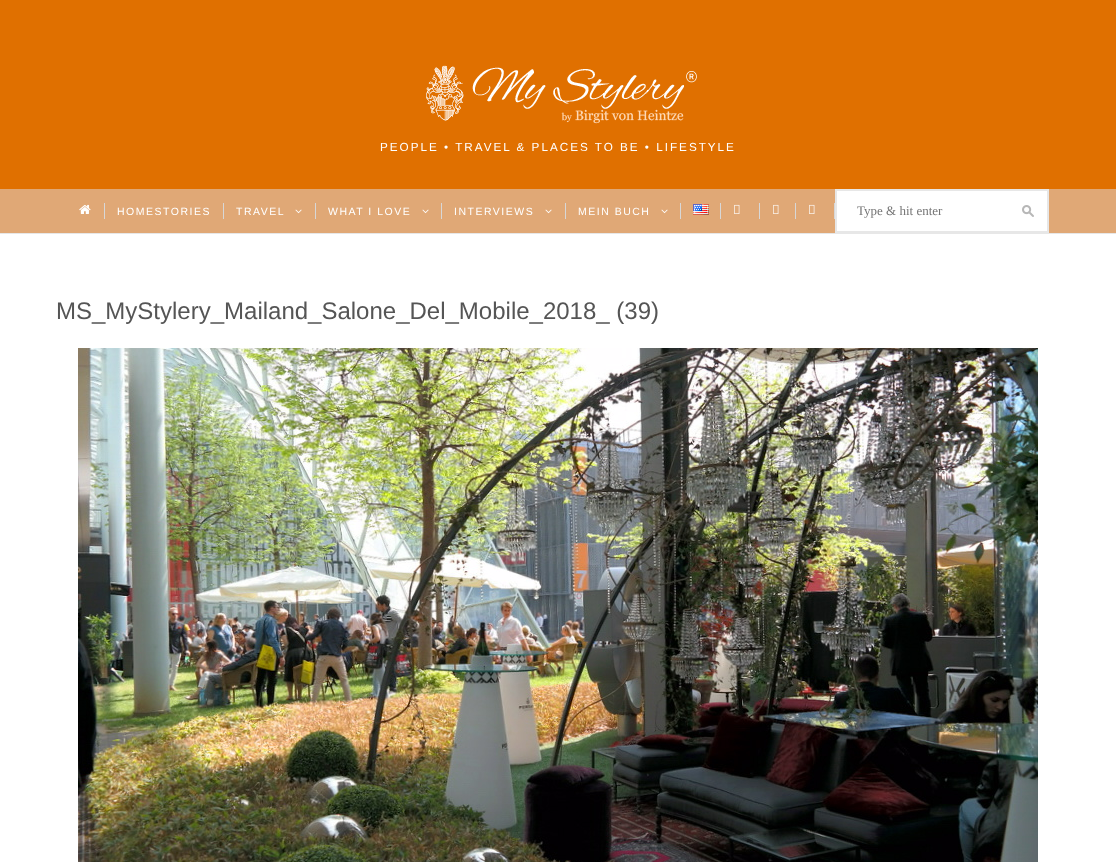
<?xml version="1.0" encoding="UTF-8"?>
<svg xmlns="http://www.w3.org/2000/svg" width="1116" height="862">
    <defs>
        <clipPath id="clip1"><rect x="857" y="203" width="156" height="16"/></clipPath>
    </defs>
    <rect width="100%" height="100%" fill="#FFFFFF"/>
    <rect x="0" y="0" width="1116" height="189" fill="#E07000"/>
    <image x="426" y="65" width="271" height="59" href="img_01.png"/>
    <text x="380" y="151" font-family="Liberation Sans" font-size="11.7" letter-spacing="2" fill="#FFFFFF">PEOPLE • TRAVEL &amp; PLACES TO BE • LIFESTYLE</text>
    <rect x="0" y="189" width="1116" height="44" fill="#E0A876"/>
    <rect x="0" y="233" width="1116" height="1" fill="#E7E7E7"/>
    <image x="79" y="204" width="12" height="10" href="img_02.png"/>
    <rect x="104" y="203" width="1" height="16" fill="#D7D7D7"/>
    <text x="117" y="215" font-family="Liberation Sans" font-size="10.5" letter-spacing="1.5" fill="#FFFFFF">HOMESTORIES</text>
    <rect x="223" y="203" width="1" height="16" fill="#D7D7D7"/>
    <text x="236" y="215" font-family="Liberation Sans" font-size="10.5" letter-spacing="1.5" fill="#FFFFFF">TRAVEL</text>
    <image x="295" y="209" width="7" height="5" href="img_03.png"/>
    <rect x="315" y="203" width="1" height="16" fill="#D7D7D7"/>
    <text x="328" y="215" font-family="Liberation Sans" font-size="10.5" letter-spacing="1.5" fill="#FFFFFF">WHAT I LOVE</text>
    <image x="422" y="209" width="7" height="5" href="img_03.png"/>
    <rect x="441" y="203" width="1" height="16" fill="#D7D7D7"/>
    <text x="454" y="215" font-family="Liberation Sans" font-size="10.5" letter-spacing="1.5" fill="#FFFFFF">INTERVIEWS</text>
    <image x="545" y="209" width="7" height="5" href="img_03.png"/>
    <rect x="565" y="203" width="1" height="16" fill="#D7D7D7"/>
    <text x="578" y="215" font-family="Liberation Sans" font-size="10.5" letter-spacing="1.5" fill="#FFFFFF">MEIN BUCH</text>
    <image x="661" y="209" width="7" height="5" href="img_03.png"/>
    <rect x="680" y="203" width="1" height="16" fill="#D7D7D7"/>
    <image x="693" y="204" width="16" height="11" href="img_04.png"/>
    <rect x="720" y="203" width="1" height="16" fill="#D7D7D7"/>
    <image x="734" y="204" width="6" height="10" href="img_05.png"/>
    <rect x="759" y="203" width="1" height="16" fill="#D7D7D7"/>
    <image x="773" y="204" width="6" height="10" href="img_05.png"/>
    <rect x="795" y="203" width="1" height="16" fill="#D7D7D7"/>
    <image x="809" y="204" width="6" height="10" href="img_05.png"/>
    <rect x="834" y="203" width="1" height="16" fill="#D7D7D7"/>
    <rect x="837" y="191" width="210" height="40" fill="#FFFFFF"/>
    <image x="1022" y="205" width="12" height="12" href="img_06.png"/>
    <rect x="836" y="190" width="212" height="42" fill="none" stroke="#E7E7E7" stroke-width="2"/>
    <g clip-path="url(#clip1)">
        <text x="857" y="215" font-family="Liberation Serif" font-size="13" fill="#757575">Type &amp; hit enter</text>
    </g>
    <text x="56" y="319" font-family="Liberation Sans" font-size="24" fill="#555555">MS_MyStylery_Mailand_Salone_Del_Mobile_2018_ (39)</text>
    <image x="78" y="348" width="960" height="514" href="img_07.png"/>
</svg>
